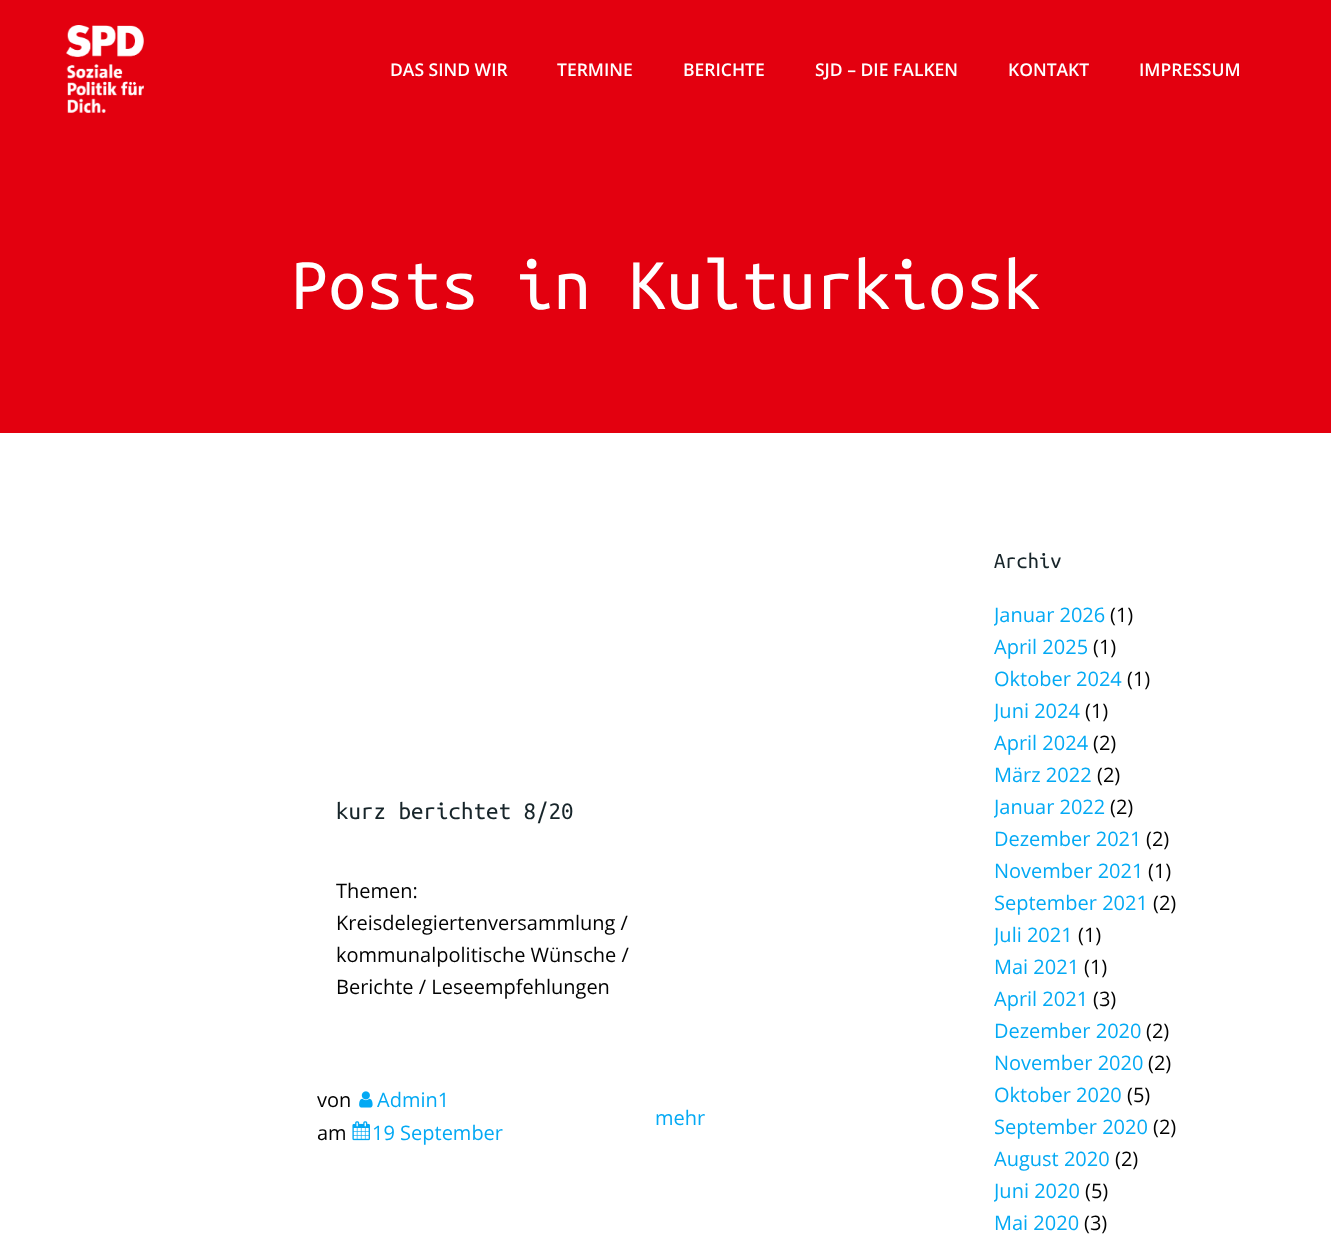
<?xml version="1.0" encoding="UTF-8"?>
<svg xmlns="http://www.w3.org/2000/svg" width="1331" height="1255">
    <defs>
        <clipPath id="clip1"><rect x="994" y="545" width="272" height="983"/></clipPath>
    </defs>
    <rect width="100%" height="100%" fill="#E3000F"/>
    <image x="66" y="25" width="78" height="88" href="img_01.png"/>
    <text x="390" y="76" font-family="Open Sans" font-size="17.5" font-weight="600" fill="#FFFFFF">DAS SIND WIR</text>
    <text x="557" y="76" font-family="Open Sans" font-size="17.5" font-weight="600" fill="#FFFFFF">TERMINE</text>
    <text x="683" y="76" font-family="Open Sans" font-size="17.5" font-weight="600" fill="#FFFFFF">BERICHTE</text>
    <text x="815" y="76" font-family="Open Sans" font-size="17.5" font-weight="600" fill="#FFFFFF">SJD – DIE FALKEN</text>
    <text x="1008" y="76" font-family="Open Sans" font-size="17.5" font-weight="600" fill="#FFFFFF">KONTAKT</text>
    <text x="1139" y="76" font-family="Open Sans" font-size="17.5" font-weight="600" fill="#FFFFFF">IMPRESSUM</text>
    <text x="291" y="309" font-family="Ubuntu Mono" font-size="75" fill="#FFFFFF">Posts in Kulturkiosk</text>
    <rect x="0" y="433" width="1331" height="822" fill="#FFFFFF"/>
    <text x="336" y="819" font-family="Ubuntu Mono" font-size="25" fill="#17252A">kurz berichtet 8/20</text>
    <text font-family="Open Sans" font-size="20" fill="#010101">
        <tspan x="336" y="898">Themen:</tspan>
        <tspan x="336" y="930">Kreisdelegiertenversammlung /</tspan>
        <tspan x="336" y="962">kommunalpolitische Wünsche /</tspan>
        <tspan x="336" y="994">Berichte / Leseempfehlungen</tspan>
    </text>
    <text x="317" y="1107" font-family="Open Sans" font-size="20" fill="#010101">von</text>
    <image x="359" y="1091" width="14" height="17" href="img_02.png"/>
    <text x="377" y="1107" font-family="Open Sans" font-size="20" fill="#03A9F4">Admin1</text>
    <text x="317" y="1140" font-family="Open Sans" font-size="20" fill="#010101">am</text>
    <image x="352" y="1121" width="18" height="20" href="img_03.png"/>
    <text x="372" y="1140" font-family="Open Sans" font-size="20" fill="#03A9F4">19 September</text>
    <text x="655" y="1125" font-family="Open Sans" font-size="20" fill="#03A9F4">mehr</text>
    <text x="994" y="568" font-family="Ubuntu Mono" font-size="22.5" fill="#17252A">Archiv</text>
    <g clip-path="url(#clip1)">
        <text x="994" y="622" font-family="Open Sans" font-size="20" fill="#03A9F4">Januar 2026</text>
    </g>
    <text x="1110" y="622" font-family="Open Sans" font-size="20" fill="#010101">(1)</text>
    <text x="994" y="654" font-family="Open Sans" font-size="20" fill="#03A9F4">April 2025</text>
    <text x="1093" y="654" font-family="Open Sans" font-size="20" fill="#010101">(1)</text>
    <text x="994" y="686" font-family="Open Sans" font-size="20" fill="#03A9F4">Oktober 2024</text>
    <text x="1127" y="686" font-family="Open Sans" font-size="20" fill="#010101">(1)</text>
    <g clip-path="url(#clip1)">
        <text x="994" y="718" font-family="Open Sans" font-size="20" fill="#03A9F4">Juni 2024</text>
    </g>
    <text x="1085" y="718" font-family="Open Sans" font-size="20" fill="#010101">(1)</text>
    <text x="994" y="750" font-family="Open Sans" font-size="20" fill="#03A9F4">April 2024</text>
    <text x="1093" y="750" font-family="Open Sans" font-size="20" fill="#010101">(2)</text>
    <text x="994" y="782" font-family="Open Sans" font-size="20" fill="#03A9F4">März 2022</text>
    <text x="1097" y="782" font-family="Open Sans" font-size="20" fill="#010101">(2)</text>
    <g clip-path="url(#clip1)">
        <text x="994" y="814" font-family="Open Sans" font-size="20" fill="#03A9F4">Januar 2022</text>
    </g>
    <text x="1110" y="814" font-family="Open Sans" font-size="20" fill="#010101">(2)</text>
    <text x="994" y="846" font-family="Open Sans" font-size="20" fill="#03A9F4">Dezember 2021</text>
    <text x="1146" y="846" font-family="Open Sans" font-size="20" fill="#010101">(2)</text>
    <text x="994" y="878" font-family="Open Sans" font-size="20" fill="#03A9F4">November 2021</text>
    <text x="1148" y="878" font-family="Open Sans" font-size="20" fill="#010101">(1)</text>
    <text x="994" y="910" font-family="Open Sans" font-size="20" fill="#03A9F4">September 2021</text>
    <text x="1153" y="910" font-family="Open Sans" font-size="20" fill="#010101">(2)</text>
    <g clip-path="url(#clip1)">
        <text x="994" y="942" font-family="Open Sans" font-size="20" fill="#03A9F4">Juli 2021</text>
    </g>
    <text x="1078" y="942" font-family="Open Sans" font-size="20" fill="#010101">(1)</text>
    <text x="994" y="974" font-family="Open Sans" font-size="20" fill="#03A9F4">Mai 2021</text>
    <text x="1084" y="974" font-family="Open Sans" font-size="20" fill="#010101">(1)</text>
    <text x="994" y="1006" font-family="Open Sans" font-size="20" fill="#03A9F4">April 2021</text>
    <text x="1093" y="1006" font-family="Open Sans" font-size="20" fill="#010101">(3)</text>
    <text x="994" y="1038" font-family="Open Sans" font-size="20" fill="#03A9F4">Dezember 2020</text>
    <text x="1146" y="1038" font-family="Open Sans" font-size="20" fill="#010101">(2)</text>
    <text x="994" y="1070" font-family="Open Sans" font-size="20" fill="#03A9F4">November 2020</text>
    <text x="1148" y="1070" font-family="Open Sans" font-size="20" fill="#010101">(2)</text>
    <text x="994" y="1102" font-family="Open Sans" font-size="20" fill="#03A9F4">Oktober 2020</text>
    <text x="1127" y="1102" font-family="Open Sans" font-size="20" fill="#010101">(5)</text>
    <text x="994" y="1134" font-family="Open Sans" font-size="20" fill="#03A9F4">September 2020</text>
    <text x="1153" y="1134" font-family="Open Sans" font-size="20" fill="#010101">(2)</text>
    <text x="994" y="1166" font-family="Open Sans" font-size="20" fill="#03A9F4">August 2020</text>
    <text x="1115" y="1166" font-family="Open Sans" font-size="20" fill="#010101">(2)</text>
    <g clip-path="url(#clip1)">
        <text x="994" y="1198" font-family="Open Sans" font-size="20" fill="#03A9F4">Juni 2020</text>
    </g>
    <text x="1085" y="1198" font-family="Open Sans" font-size="20" fill="#010101">(5)</text>
    <text x="994" y="1230" font-family="Open Sans" font-size="20" fill="#03A9F4">Mai 2020</text>
    <text x="1084" y="1230" font-family="Open Sans" font-size="20" fill="#010101">(3)</text>
</svg>
